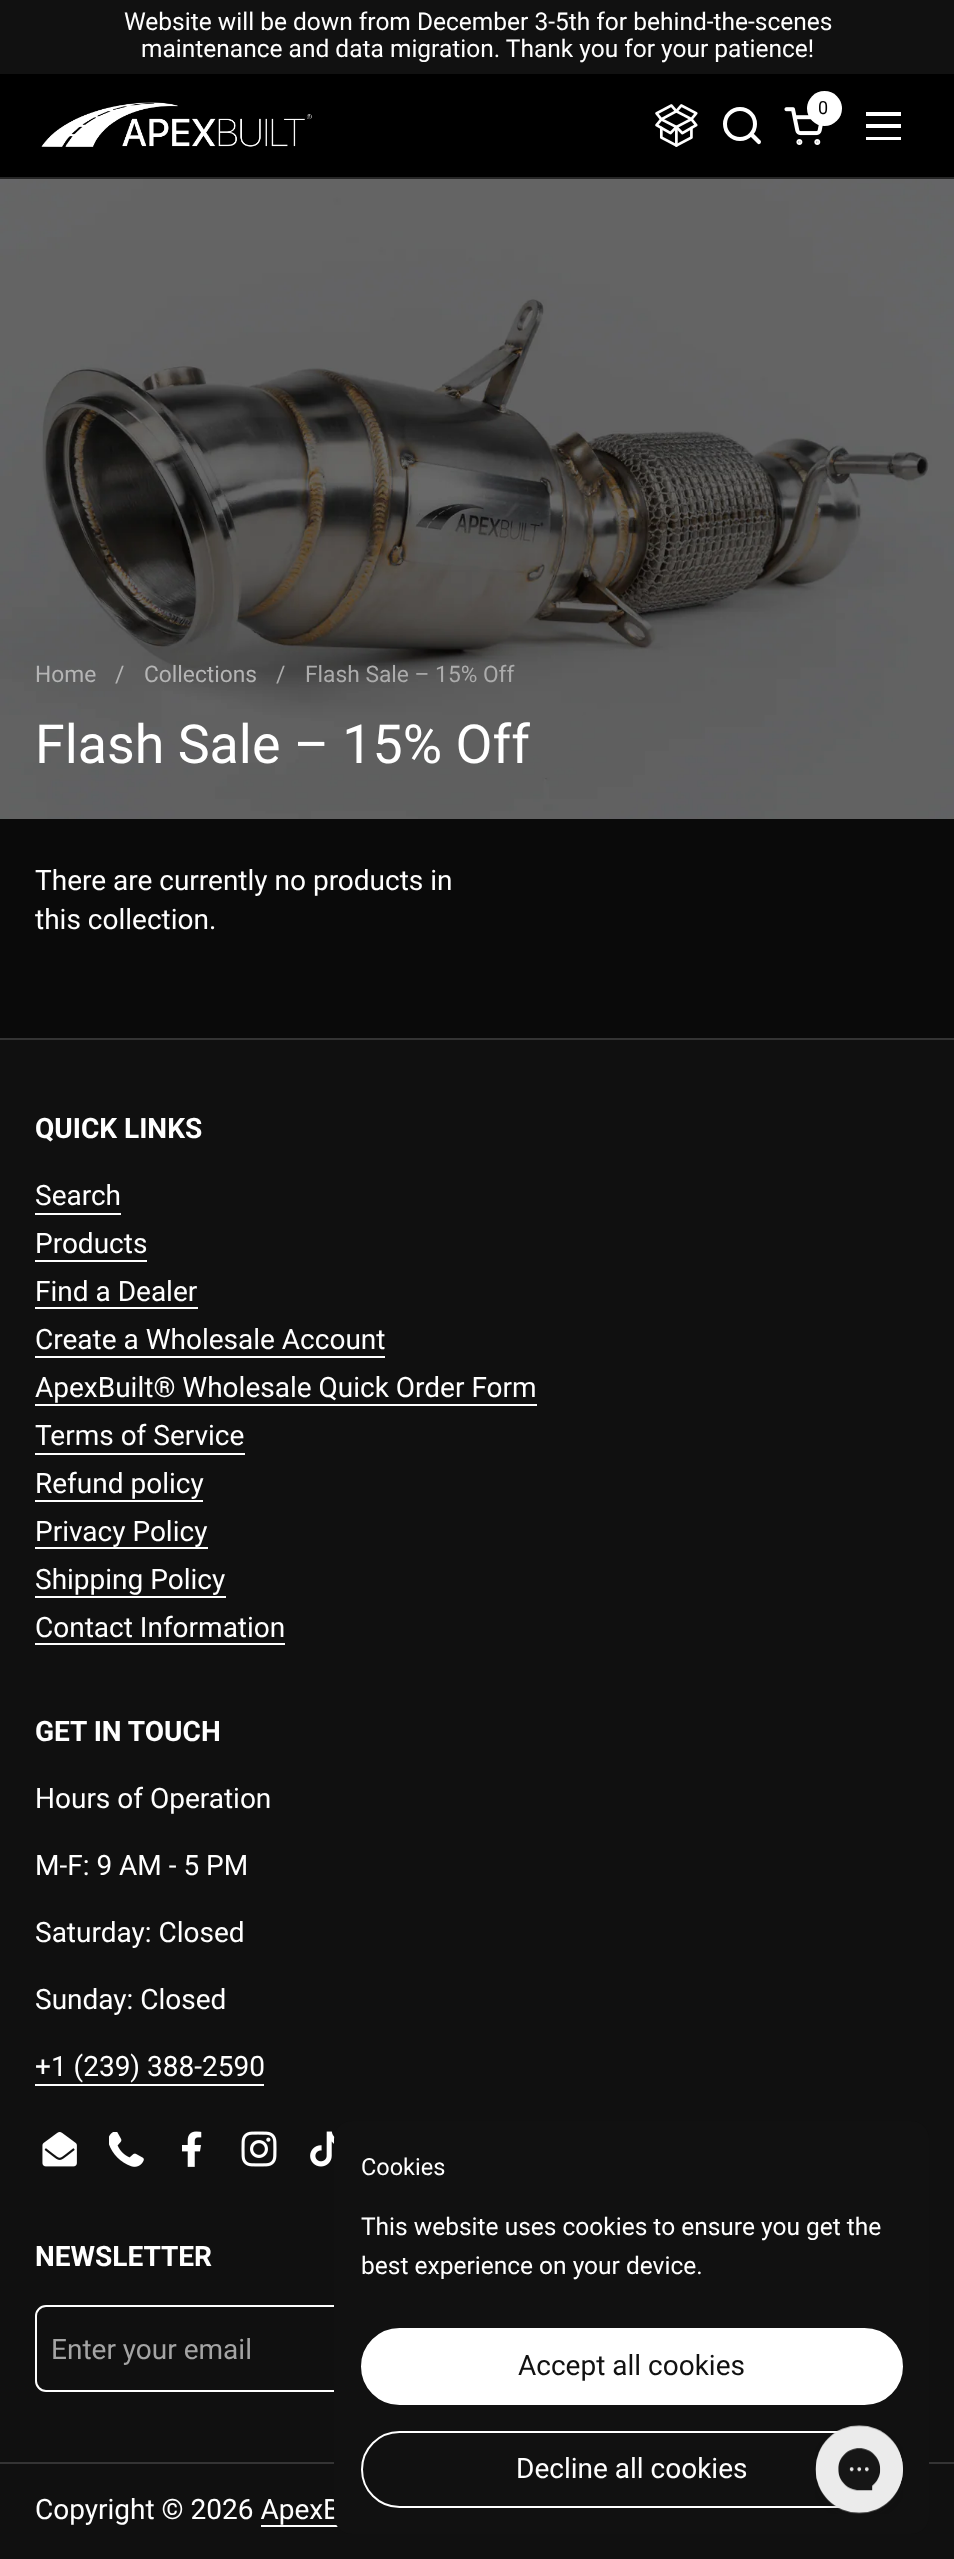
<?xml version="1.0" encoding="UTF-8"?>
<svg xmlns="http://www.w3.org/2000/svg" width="954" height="2559">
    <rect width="100%" height="100%" fill="#0A0A0A"/>
    <rect x="0" y="0" width="954" height="74" fill="#111111"/>
    <text x="124" y="30" font-family="Roboto" font-size="24.5" fill="#FFFFFF">Website will be down from December 3-5th for behind-the-scenes</text>
    <text x="141" y="57" font-family="Roboto" font-size="24.5" fill="#FFFFFF">maintenance and data migration. Thank you for your patience!</text>
    <rect x="0" y="74" width="954" height="103" fill="#000000"/>
    <image x="41" y="102" width="271" height="45" href="img_01.png"/>
    <image x="655" y="104" width="43" height="43" href="img_02.png"/>
    <circle cx="740" cy="124" r="15" fill="none" stroke="#FFFFFF" stroke-width="4"/>
    <path d="M 753.5 133.5 L 752 132.5 L 749 135 L 750.5 136.5 Z M 757.5 143.5 C 759.5 145.5 762 142.5 760.5 140.5 Z M 750.5 136.5 L 757.5 143.5 L 760.5 140.5 L 753.5 133.5 Z" fill="#FFFFFF"/>
    <circle cx="824.5" cy="108.5" r="17.5" fill="#FFFFFF"/>
    <text x="818" y="114" font-family="Roboto" font-size="18" fill="#000000">0</text>
    <image x="784" y="107" width="39" height="38" href="img_03.png"/>
    <rect x="866" y="112" width="35" height="4" fill="#FFFFFF"/>
    <rect x="866" y="124" width="35" height="4" fill="#FFFFFF"/>
    <rect x="866" y="137" width="35" height="3" fill="#FFFFFF"/>
    <rect x="0" y="177" width="954" height="2" fill="#262626"/>
    <image x="0" y="179" width="954" height="640" href="img_04.png"/>
    <text x="35" y="682" font-family="Roboto" font-size="22.75" fill="#B5B5B5">Home</text>
    <text x="115" y="682" font-family="Roboto" font-size="22.75" fill="#B5B5B5">/</text>
    <text x="144" y="682" font-family="Roboto" font-size="22.75" fill="#B5B5B5">Collections</text>
    <text x="276" y="682" font-family="Roboto" font-size="22.75" fill="#ACACAC">/</text>
    <text x="305" y="682" font-family="Roboto" font-size="22.75" fill="#ACACAC">Flash Sale – 15% Off</text>
    <text x="35" y="763" font-family="Roboto" font-size="53.75" fill="#FFFFFF">Flash Sale – 15% Off</text>
    <text font-family="Roboto" font-size="28" fill="#FFFFFF">
        <tspan x="35" y="890">There are currently no products in</tspan>
        <tspan x="35" y="929">this collection.</tspan>
    </text>
    <rect x="0" y="1040" width="954" height="1519" fill="#101010"/>
    <rect x="0" y="1038" width="954" height="2" fill="#343434"/>
    <text x="35" y="1138" font-family="Roboto" font-size="28" font-weight="700" fill="#FFFFFF">QUICK LINKS</text>
    <text x="35" y="1205" font-family="Roboto" font-size="28" fill="#FFFFFF">Search</text>
    <rect x="35" y="1213" width="86" height="2" fill="#FFFFFF"/>
    <text x="35" y="1253" font-family="Roboto" font-size="28" fill="#FFFFFF">Products</text>
    <rect x="35" y="1260" width="112" height="2" fill="#FFFFFF"/>
    <text x="35" y="1301" font-family="Roboto" font-size="28" fill="#FFFFFF">Find a Dealer</text>
    <rect x="35" y="1307" width="163" height="2" fill="#FFFFFF"/>
    <text x="35" y="1349" font-family="Roboto" font-size="28" fill="#FFFFFF">Create a Wholesale Account</text>
    <rect x="35" y="1356" width="350" height="2" fill="#FFFFFF"/>
    <text x="35" y="1397" font-family="Roboto" font-size="28" fill="#FFFFFF">ApexBuilt® Wholesale Quick Order Form</text>
    <rect x="35" y="1404" width="502" height="2" fill="#FFFFFF"/>
    <text x="35" y="1445" font-family="Roboto" font-size="28" fill="#FFFFFF">Terms of Service</text>
    <rect x="35" y="1453" width="210" height="2" fill="#FFFFFF"/>
    <text x="35" y="1493" font-family="Roboto" font-size="28" fill="#FFFFFF">Refund policy</text>
    <rect x="35" y="1500" width="168" height="2" fill="#FFFFFF"/>
    <text x="35" y="1541" font-family="Roboto" font-size="28" fill="#FFFFFF">Privacy Policy</text>
    <rect x="35" y="1547" width="173" height="2" fill="#FFFFFF"/>
    <text x="35" y="1589" font-family="Roboto" font-size="28" fill="#FFFFFF">Shipping Policy</text>
    <rect x="35" y="1596" width="191" height="2" fill="#FFFFFF"/>
    <text x="35" y="1637" font-family="Roboto" font-size="28" fill="#FFFFFF">Contact Information</text>
    <rect x="35" y="1643" width="250" height="2" fill="#FFFFFF"/>
    <text x="35" y="1741" font-family="Roboto" font-size="28" font-weight="700" fill="#FFFFFF">GET IN TOUCH</text>
    <text x="35" y="1808" font-family="Roboto" font-size="28" fill="#FFFFFF">Hours of Operation</text>
    <text x="35" y="1875" font-family="Roboto" font-size="28" fill="#FFFFFF">M-F: 9 AM - 5 PM</text>
    <text x="35" y="1942" font-family="Roboto" font-size="28" fill="#FFFFFF">Saturday: Closed</text>
    <text x="35" y="2009" font-family="Roboto" font-size="28" fill="#FFFFFF">Sunday: Closed</text>
    <text x="35" y="2076" font-family="Roboto" font-size="28" fill="#FFFFFF">+1 (239) 388-2590</text>
    <rect x="35" y="2084" width="229" height="2" fill="#FFFFFF"/>
    <image x="42" y="2132" width="35" height="35" href="img_05.png"/>
    <image x="109" y="2132" width="35" height="35" href="img_06.png"/>
    <image x="182" y="2131" width="20" height="36" href="img_07.png"/>
    <image x="241" y="2131" width="36" height="36" href="img_08.png"/>
    <image x="310" y="2131" width="25" height="36" href="img_09.png"/>
    <text x="35" y="2266" font-family="Roboto" font-size="28" font-weight="700" fill="#FFFFFF">NEWSLETTER</text>
    <rect x="36" y="2306" width="884" height="85" rx="10" fill="none" stroke="#FFFFFF" stroke-width="2"/>
    <text x="51" y="2359" font-family="Roboto" font-size="28" fill="#A4A4A4">Enter your email</text>
    <rect x="0" y="2462" width="954" height="2" fill="#343434"/>
    <text x="35" y="2519" font-family="Roboto" font-size="28" fill="#FFFFFF">Copyright © 2026 ApexB</text>
    <rect x="261" y="2525" width="77" height="2" fill="#FFFFFF"/>
    <rect x="334" y="2121" width="595" height="413" rx="18" fill="#111111"/>
    <text x="361" y="2175" font-family="Roboto" font-size="23.5" fill="#FFFFFF">Cookies</text>
    <text font-family="Roboto" font-size="24.5" fill="#FFFFFF">
        <tspan x="361" y="2235">This website uses cookies to ensure you get the</tspan>
        <tspan x="361" y="2274">best experience on your device.</tspan>
    </text>
    <rect x="362" y="2329" width="540" height="75" rx="37.5" fill="#FFFFFF" stroke="#FFFFFF" stroke-width="2"/>
    <text x="518" y="2375" font-family="Roboto" font-size="28" fill="#111111">Accept all cookies</text>
    <rect x="362" y="2432" width="540" height="75" rx="37.5" fill="none" stroke="#FFFFFF" stroke-width="2"/>
    <text x="516" y="2478" font-family="Roboto" font-size="28" fill="#FFFFFF">Decline all cookies</text>
    <image x="815" y="2425" width="88" height="89" href="img_10.png"/>
</svg>
